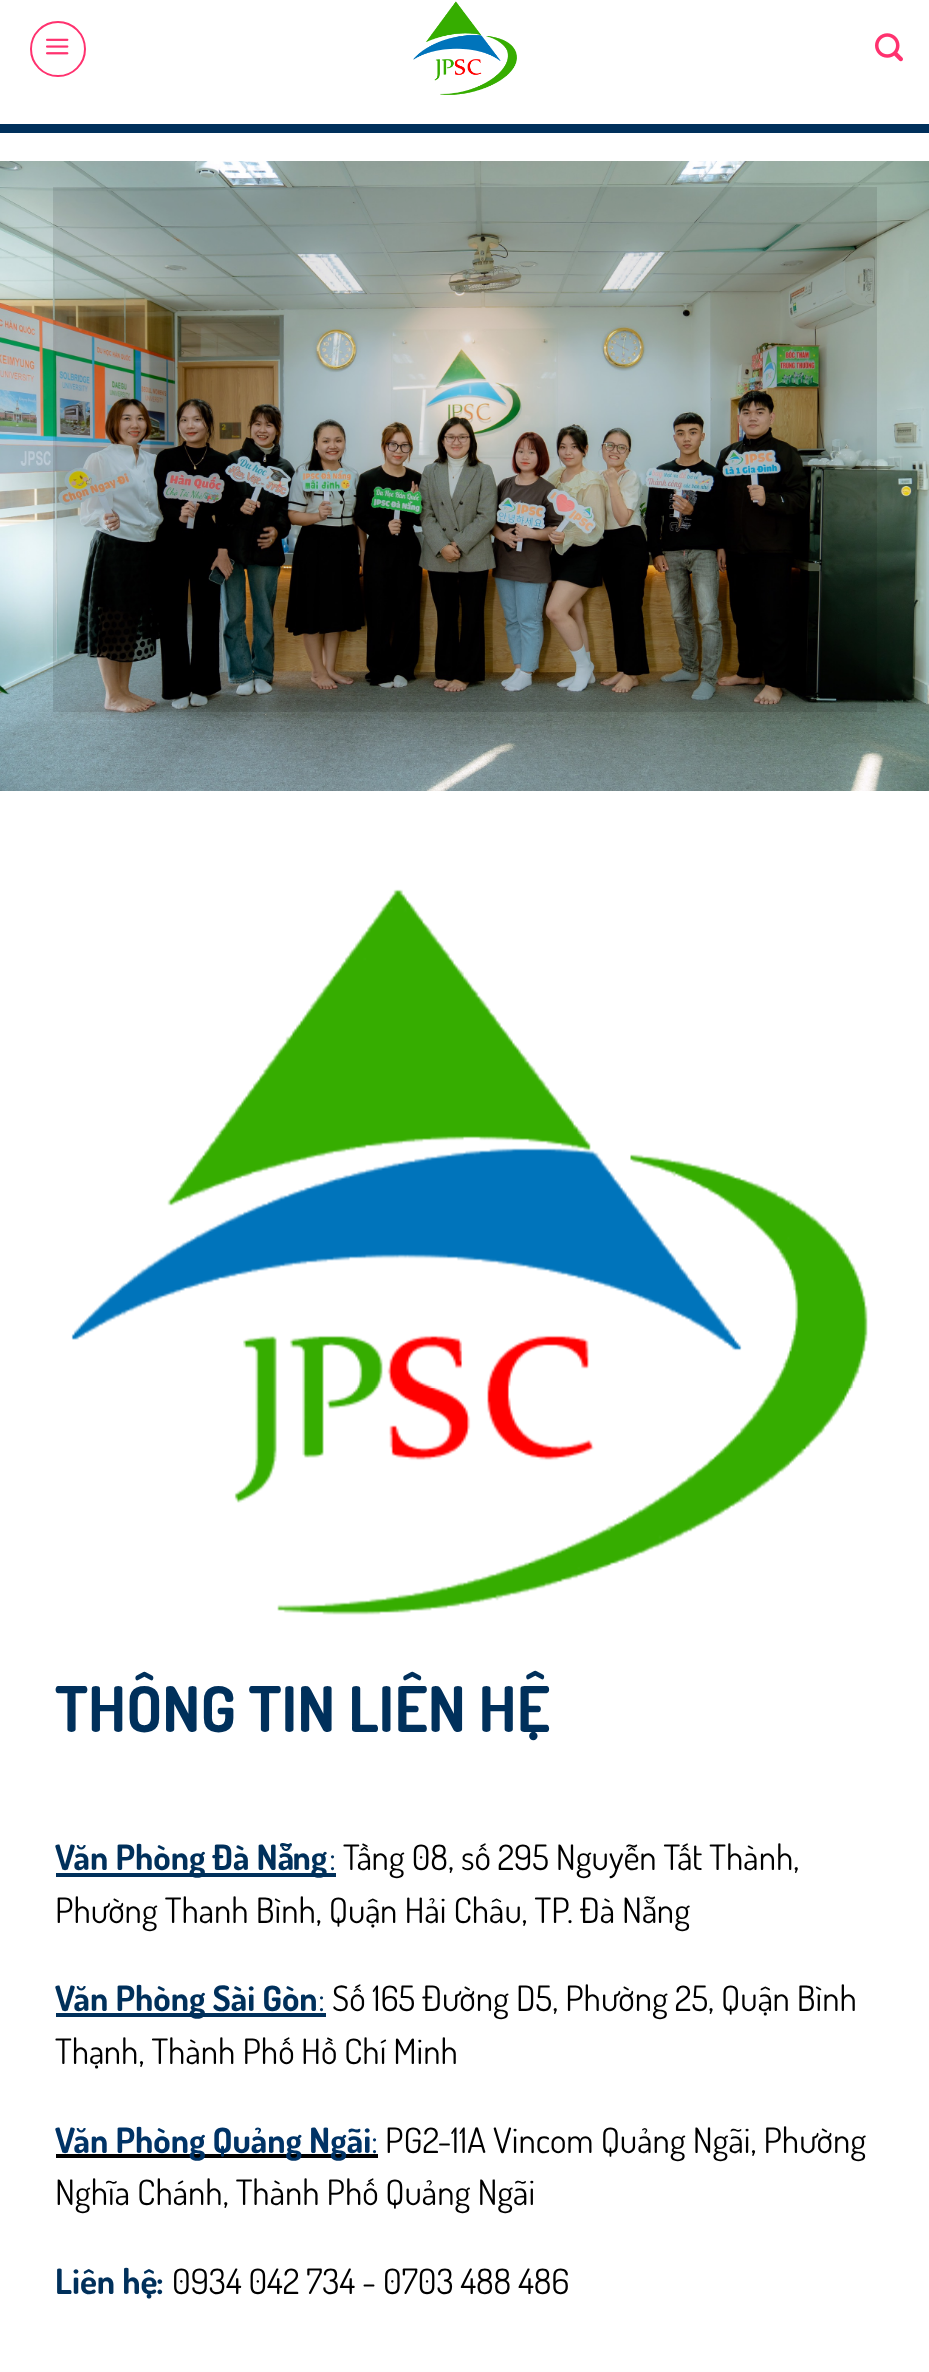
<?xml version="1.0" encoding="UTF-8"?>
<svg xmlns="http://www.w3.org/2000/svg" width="929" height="2372">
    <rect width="100%" height="100%" fill="#FFFFFF"/>
    <circle cx="58" cy="49" r="27" fill="none" stroke="#FF326F" stroke-width="2"/>
    <image x="46" y="38" width="23" height="17" href="img_01.png"/>
    <image x="413" y="1" width="104" height="94" href="img_02.png"/>
    <image x="875" y="33" width="28" height="29" href="img_03.png"/>
    <rect x="0" y="124" width="929" height="9" fill="#00305B"/>
    <image x="0" y="161" width="929" height="630" href="img_04.png"/>
    <rect x="53" y="187" width="824" height="525" fill="#000000" fill-opacity="0.1"/>
    <image x="71" y="889" width="797" height="726" href="img_05.png"/>
    <text x="55" y="1732" font-family="Dosis" font-size="63" font-weight="700" fill="#00305B">THÔNG TIN LIÊN HỆ</text>
    <rect x="56" y="1873" width="280" height="4" fill="#00305B"/>
    <text x="55" y="1870" font-family="Dosis" font-size="35" font-weight="700" fill="#00305B">Văn Phòng Đà Nẵng</text>
    <text x="329" y="1870" font-family="Dosis" font-size="35" fill="#00305B">:</text>
    <text x="343" y="1870" font-family="Dosis" font-size="35" fill="#000000">Tầng 08, số 295 Nguyễn Tất Thành,</text>
    <text x="55" y="1923" font-family="Dosis" font-size="35" fill="#000000">Phường Thanh Bình, Quận Hải Châu, TP. Đà Nẵng</text>
    <rect x="56" y="2013" width="270" height="4" fill="#00305B"/>
    <text x="55" y="2011" font-family="Dosis" font-size="35" font-weight="700" fill="#00305B">Văn Phòng Sài Gòn</text>
    <text x="318" y="2011" font-family="Dosis" font-size="35" fill="#00305B">:</text>
    <text x="332" y="2011" font-family="Dosis" font-size="35" fill="#000000">Số 165 Đường D5, Phường 25, Quận Bình</text>
    <text x="55" y="2064" font-family="Dosis" font-size="35" fill="#000000">Thạnh, Thành Phố Hồ Chí Minh</text>
    <rect x="56" y="2154" width="322" height="4" fill="#000000"/>
    <text x="55" y="2153" font-family="Dosis" font-size="35" font-weight="700" fill="#003366">Văn Phòng Quảng Ngãi</text>
    <text x="371" y="2153" font-family="Dosis" font-size="35" fill="#003366">:</text>
    <text x="385" y="2153" font-family="Dosis" font-size="35" fill="#000000">PG2-11A Vincom Quảng Ngãi, Phường</text>
    <text x="55" y="2205" font-family="Dosis" font-size="35" fill="#000000">Nghĩa Chánh, Thành Phố Quảng Ngãi</text>
    <text x="55" y="2294" font-family="Dosis" font-size="35" font-weight="700" fill="#00305B">Liên hệ:</text>
    <text x="172" y="2294" font-family="Dosis" font-size="35" fill="#000000">0934 042 734 - 0703 488 486</text>
</svg>
